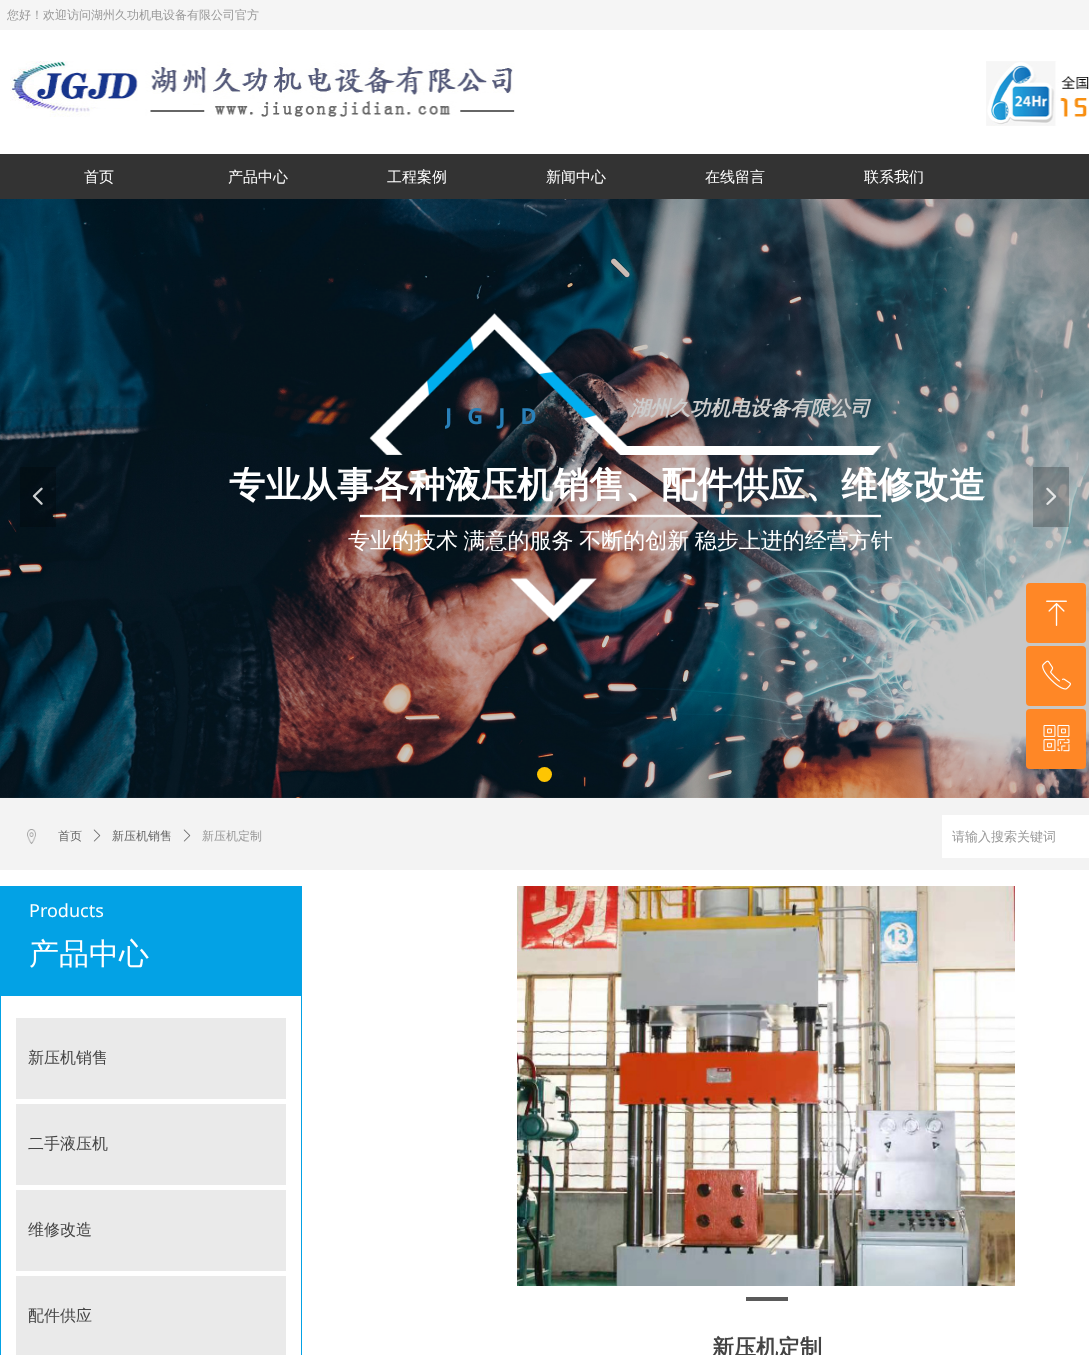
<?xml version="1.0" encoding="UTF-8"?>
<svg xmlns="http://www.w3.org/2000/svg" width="1089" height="1355">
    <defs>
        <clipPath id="clip1"><rect x="445" y="402" width="117" height="29"/></clipPath>
        <clipPath id="clip2"><rect x="229" y="467" width="762" height="44"/></clipPath>
    </defs>
    <rect width="100%" height="100%" fill="#FFFFFF"/>
    <rect x="0" y="0" width="1089" height="30" fill="#F5F5F5"/>
    <text x="7" y="19" font-family="WenQuanYi Zen Hei" font-size="12" font-weight="500" fill="#999999">您好！欢迎访问湖州久功机电设备有限公司官方</text>
    <image x="10" y="61" width="505" height="56" href="img_01.png"/>
    <image x="986" y="61" width="103" height="65" href="img_02.png"/>
    <rect x="0" y="154" width="1089" height="45" fill="#333333"/>
    <text x="84" y="182" font-family="WenQuanYi Zen Hei" font-size="15" font-weight="500" fill="#FFFFFF">首页</text>
    <text x="228" y="182" font-family="WenQuanYi Zen Hei" font-size="15" font-weight="500" fill="#FFFFFF">产品中心</text>
    <text x="387" y="182" font-family="WenQuanYi Zen Hei" font-size="15" font-weight="500" fill="#FFFFFF">工程案例</text>
    <text x="546" y="182" font-family="WenQuanYi Zen Hei" font-size="15" font-weight="500" fill="#FFFFFF">新闻中心</text>
    <text x="705" y="182" font-family="WenQuanYi Zen Hei" font-size="15" font-weight="500" fill="#FFFFFF">在线留言</text>
    <text x="864" y="182" font-family="WenQuanYi Zen Hei" font-size="15" font-weight="500" fill="#FFFFFF">联系我们</text>
    <image x="0" y="199" width="1089" height="599" href="img_04.png"/>
    <rect x="20" y="467" width="36" height="60" fill="#000000" fill-opacity="0.24"/>
    <image x="32" y="487" width="11" height="18" href="img_03.png"/>
    <image x="359" y="313" width="522" height="309" href="img_05.png"/>
    <g clip-path="url(#clip1)">
        <text x="445" y="424" font-family="Noto Sans" font-size="22" font-weight="700" letter-spacing="15" fill="#2980B9">JGJD</text>
    </g>
    <text x="630" y="415" font-family="WenQuanYi Zen Hei" font-size="20" font-weight="700" font-style="italic" fill="#CCCCCC">湖州久功机电设备有限公司</text>
    <g clip-path="url(#clip2)">
        <text x="229" y="497" font-family="WenQuanYi Zen Hei" font-size="36" font-weight="700" fill="#FFFFFF">专业从事各种液压机销售、配件供应、维修改造</text>
    </g>
    <text x="348" y="548" word-spacing="-1" font-family="WenQuanYi Zen Hei" font-size="22" font-weight="500" fill="#FFFFFF">专业的技术 满意的服务 不断的创新 稳步上进的经营方针</text>
    <rect x="1033" y="467" width="36" height="60" fill="#000000" fill-opacity="0.24"/>
    <image x="1046" y="487" width="11" height="18" href="img_06.png"/>
    <circle cx="544.5" cy="774.5" r="7.5" fill="#FEC502"/>
    <rect x="0" y="798" width="1089" height="72" fill="#F3F3F3"/>
    <image x="27" y="829" width="9" height="15" href="img_07.png"/>
    <text x="58" y="840" font-family="WenQuanYi Zen Hei" font-size="12" font-weight="500" fill="#666666">首页</text>
    <image x="93" y="829" width="8" height="13" href="img_08.png"/>
    <text x="112" y="840" font-family="WenQuanYi Zen Hei" font-size="12" font-weight="500" fill="#666666">新压机销售</text>
    <image x="183" y="829" width="8" height="13" href="img_08.png"/>
    <text x="202" y="840" font-family="WenQuanYi Zen Hei" font-size="12" font-weight="500" fill="#999999">新压机定制</text>
    <rect x="942" y="815" width="147" height="43" fill="#FFFFFF"/>
    <text x="952" y="841" font-family="WenQuanYi Zen Hei" font-size="13" font-weight="500" fill="#999999">请输入搜索关键词</text>
    <rect x="301" y="886" width="1" height="469" fill="#03A2E5"/>
    <rect x="0" y="886" width="1" height="469" fill="#03A2E5"/>
    <rect x="1" y="886" width="300" height="110" fill="#03A2E5"/>
    <text x="29" y="917" font-family="Noto Sans" font-size="18" fill="#FFFFFF">Products</text>
    <text x="29" y="964" font-family="WenQuanYi Zen Hei" font-size="30" font-weight="500" fill="#FFFFFF">产品中心</text>
    <rect x="16" y="1018" width="270" height="81" fill="#EAEAEA"/>
    <text x="28" y="1063" font-family="WenQuanYi Zen Hei" font-size="16" font-weight="500" fill="#444444">新压机销售</text>
    <rect x="16" y="1104" width="270" height="81" fill="#EAEAEA"/>
    <text x="28" y="1149" font-family="WenQuanYi Zen Hei" font-size="16" font-weight="500" fill="#444444">二手液压机</text>
    <rect x="16" y="1190" width="270" height="81" fill="#EAEAEA"/>
    <text x="28" y="1235" font-family="WenQuanYi Zen Hei" font-size="16" font-weight="500" fill="#444444">维修改造</text>
    <rect x="16" y="1276" width="270" height="79" fill="#EAEAEA"/>
    <text x="28" y="1321" font-family="WenQuanYi Zen Hei" font-size="16" font-weight="500" fill="#444444">配件供应</text>
    <image x="517" y="886" width="498" height="400" href="img_09.png"/>
    <rect x="746" y="1297" width="42" height="4" fill="#5A5A5A"/>
    <text x="712" y="1355" font-family="WenQuanYi Zen Hei" font-size="22" font-weight="700" fill="#444444">新压机定制</text>
    <rect x="1026" y="583" width="60" height="60" rx="4" fill="#FF8726"/>
    <image x="1046" y="600" width="21" height="26" href="img_10.png"/>
    <rect x="1026" y="646" width="60" height="60" rx="4" fill="#FF8726"/>
    <image x="1042" y="660" width="29" height="30" href="img_11.png"/>
    <rect x="1026" y="709" width="60" height="60" rx="4" fill="#FF8726"/>
    <image x="1043" y="725" width="27" height="27" href="img_12.png"/>
</svg>
